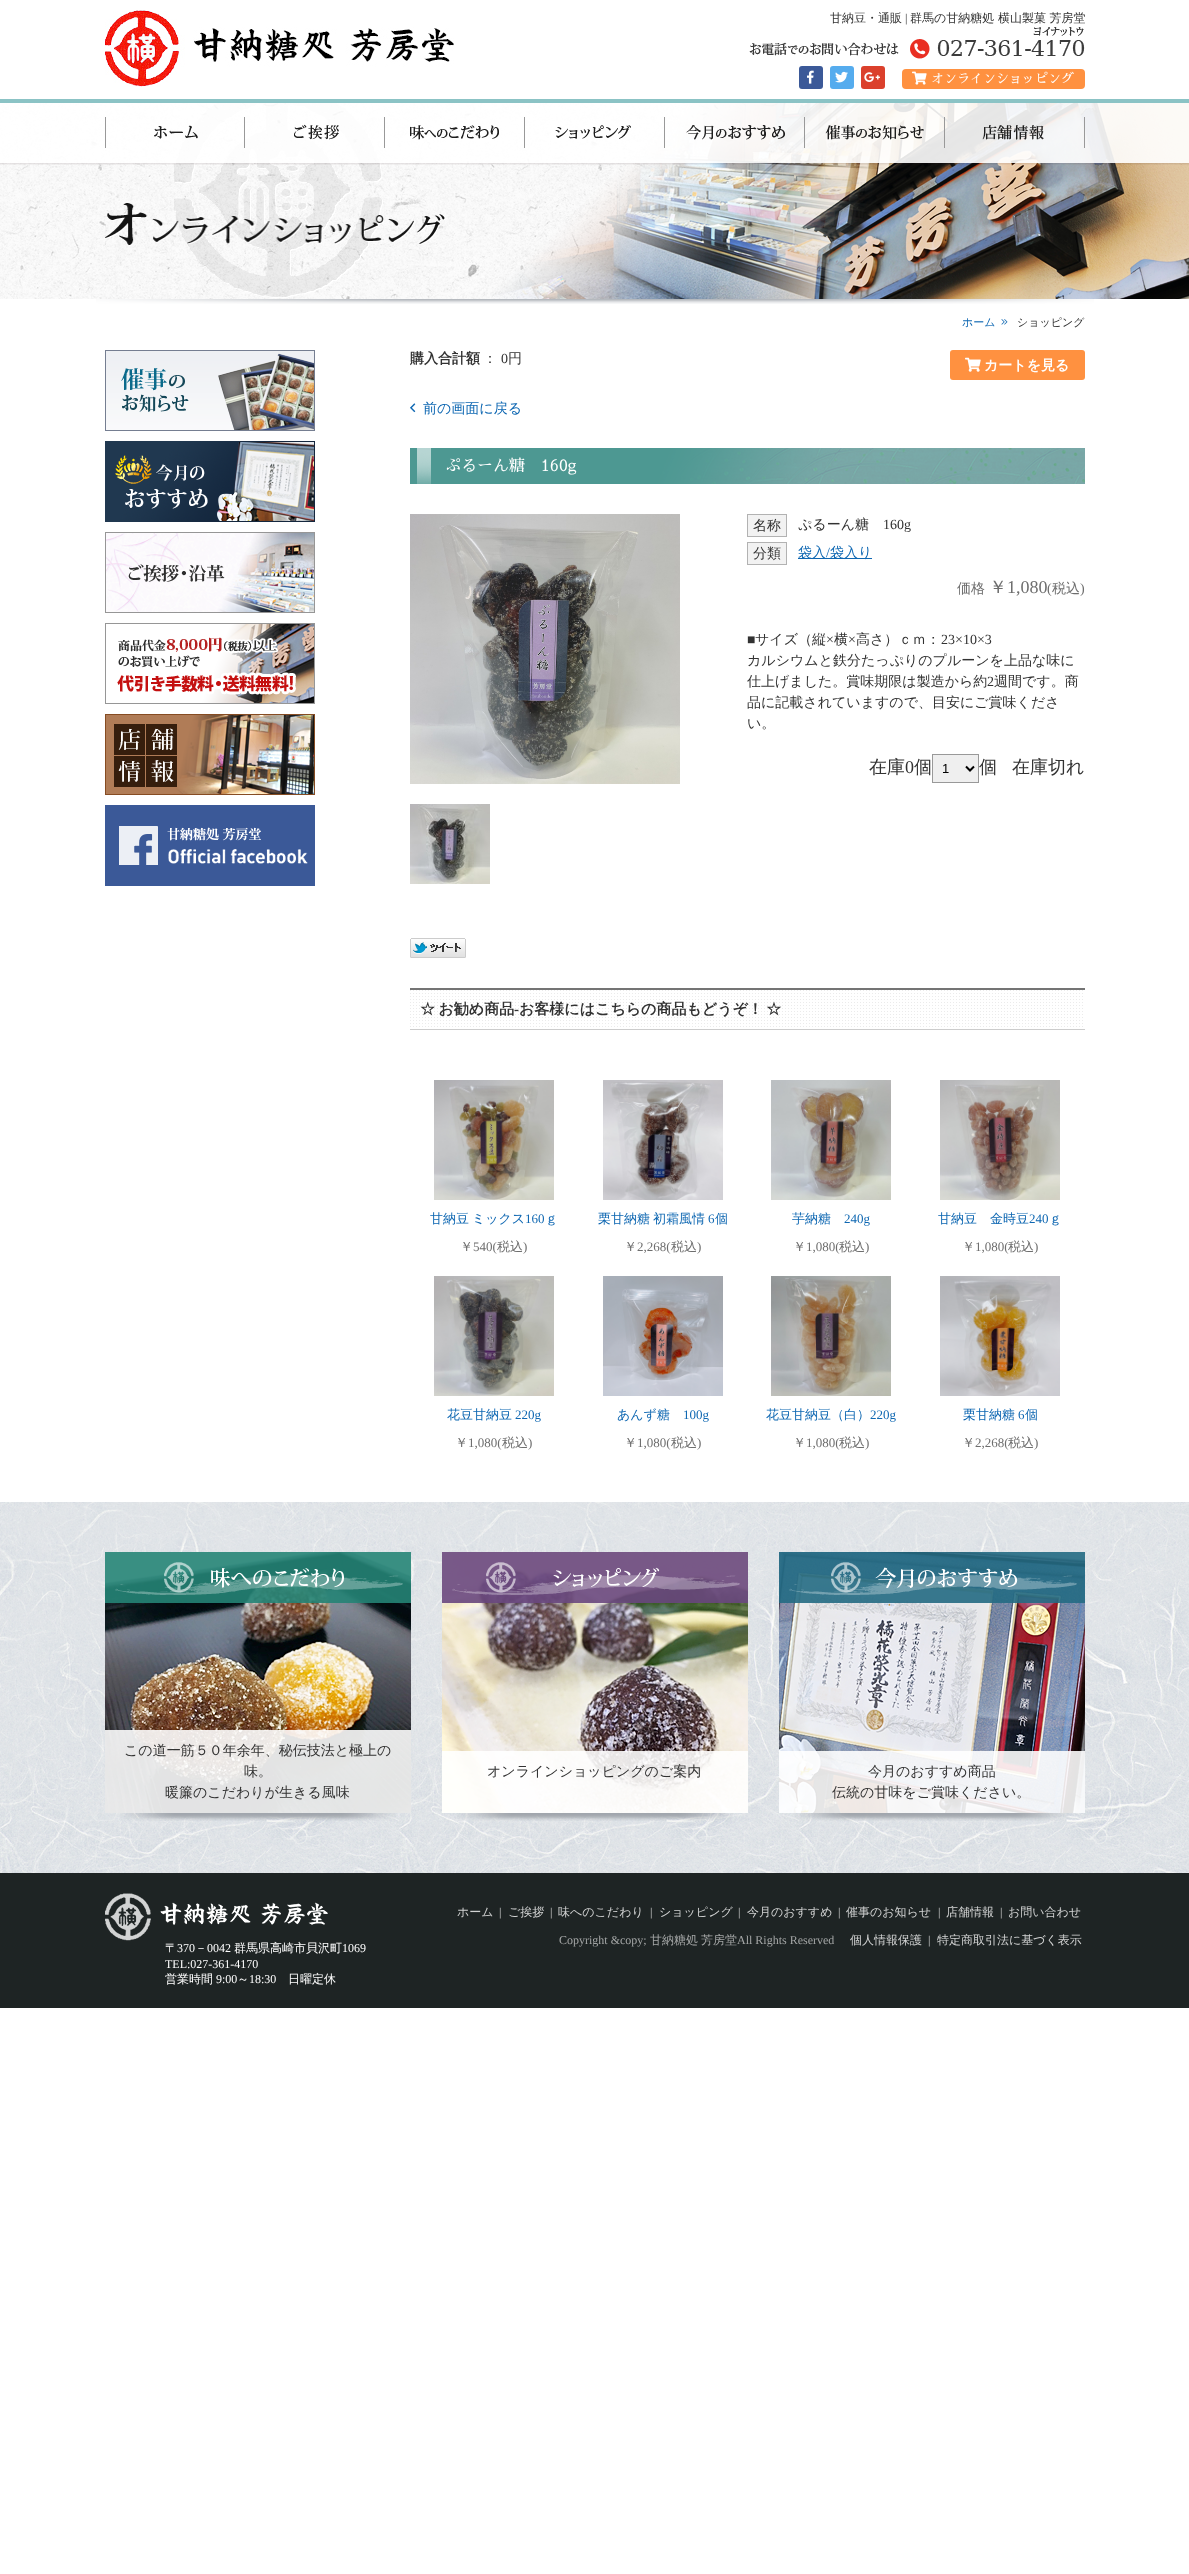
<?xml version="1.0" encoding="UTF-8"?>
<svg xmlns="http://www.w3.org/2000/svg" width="1189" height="2574">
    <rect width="100%" height="100%" fill="#FFFFFF"/>
    <image x="105" y="10" width="349" height="77" href="img_01.png"/>
    <text x="830" y="22" font-family="WenQuanYi Zen Hei" font-size="12" font-weight="500" fill="#323232">甘納豆・通販</text>
    <text x="905" y="22" font-family="Liberation Serif" font-size="12" fill="#323232">|</text>
    <text x="910" y="22" font-family="WenQuanYi Zen Hei" font-size="12" font-weight="500" fill="#323232">群馬の甘納糖処 横山製菓 芳房堂</text>
    <image x="749" y="27" width="336" height="32" href="img_02.png"/>
    <rect x="799" y="66" width="24" height="23" rx="3" fill="#3B5998"/>
    <image x="807" y="70" width="7" height="14" href="img_03.png"/>
    <rect x="830" y="66" width="24" height="23" rx="3" fill="#55ACEE"/>
    <image x="835" y="71" width="13" height="12" href="img_04.png"/>
    <rect x="861" y="66" width="24" height="23" rx="3" fill="#DB402C"/>
    <image x="864" y="72" width="16" height="10" href="img_05.png"/>
    <rect x="902" y="69" width="183" height="20" rx="4" fill="#FF9140"/>
    <image x="912" y="71" width="15" height="14" href="img_06.png"/>
    <text x="931" y="83" font-family="Sawarabi Mincho" font-size="13" fill="#FFFFFF">オンラインショッピング</text>
    <image x="0" y="103" width="874" height="196" href="img_07.png"/>
    <rect x="0" y="99" width="1189" height="4" fill="#8BC3C5"/>
    <image x="174" y="103" width="1015" height="196" href="img_10.png"/>
    <image x="0" y="103" width="1189" height="62" href="img_08.png"/>
    <image x="105" y="117" width="980" height="31" href="img_09.png"/>
    <image x="105" y="203" width="340" height="43" href="img_11.png"/>
    <image x="96" y="299" width="998" height="5" href="img_12.png"/>
    <text x="962" y="326" font-family="WenQuanYi Zen Hei" font-size="11" font-weight="500" fill="#0E67B2">ホーム</text>
    <image x="1001" y="319" width="7" height="6" href="img_13.png"/>
    <text x="1017" y="326" font-family="WenQuanYi Zen Hei" font-size="11" font-weight="500" fill="#323232">ショッピング</text>
    <image x="105" y="350" width="210" height="81" href="img_14.png"/>
    <image x="105" y="441" width="210" height="81" href="img_15.png"/>
    <image x="105" y="532" width="210" height="81" href="img_16.png"/>
    <image x="105" y="623" width="210" height="81" href="img_17.png"/>
    <image x="105" y="714" width="210" height="81" href="img_18.png"/>
    <image x="105" y="805" width="210" height="81" href="img_19.png"/>
    <text x="410" y="363" font-family="WenQuanYi Zen Hei" font-size="14" font-weight="700" fill="#323232">購入合計額</text>
    <text x="483" y="363" font-family="WenQuanYi Zen Hei" font-size="14" font-weight="500" fill="#323232">：</text>
    <text x="501" y="363" font-family="Liberation Serif" font-size="14" fill="#323232">0</text>
    <text x="508" y="363" font-family="WenQuanYi Zen Hei" font-size="14" font-weight="500" fill="#323232">円</text>
    <rect x="950" y="350" width="135" height="30" rx="3" fill="#FF9140"/>
    <image x="965" y="357" width="16" height="15" href="img_20.png"/>
    <text x="984" y="370" font-family="WenQuanYi Zen Hei" font-size="14" font-weight="700" fill="#FFFFFF">カートを見る</text>
    <image x="410" y="403" width="6" height="10" href="img_21.png"/>
    <text x="423" y="413" font-family="WenQuanYi Zen Hei" font-size="14" font-weight="500" fill="#0E67B2">前の画面に戻る</text>
    <image x="410" y="448" width="675" height="36" href="img_22.png"/>
    <text x="445" y="471" font-family="Sawarabi Mincho" font-size="16" fill="#FFFFFF">ぷるーん糖　160g</text>
    <image x="410" y="514" width="270" height="270" href="img_23.png"/>
    <image x="410" y="804" width="80" height="80" href="img_24.png"/>
    <rect x="747.5" y="514.5" width="39" height="22" fill="#F2F2F2" stroke="#B2B2B2"/>
    <text x="753" y="530" font-family="WenQuanYi Zen Hei" font-size="14" font-weight="500" fill="#323232">名称</text>
    <text x="798" y="529" font-family="WenQuanYi Zen Hei" font-size="14" font-weight="500" fill="#323232">ぷるーん糖</text>
    <text x="883" y="529" font-family="Liberation Serif" font-size="14" fill="#323232">160g</text>
    <rect x="747.5" y="542.5" width="39" height="22" fill="#F2F2F2" stroke="#B2B2B2"/>
    <text x="753" y="558" font-family="WenQuanYi Zen Hei" font-size="14" font-weight="500" fill="#323232">分類</text>
    <rect x="798" y="558" width="74" height="1" fill="#0E67B2"/>
    <text x="798" y="557" font-family="WenQuanYi Zen Hei" font-size="14" font-weight="500" fill="#0E67B2">袋入</text>
    <text x="826" y="557" font-family="Liberation Serif" font-size="14" fill="#0E67B2">/</text>
    <text x="830" y="557" font-family="WenQuanYi Zen Hei" font-size="14" font-weight="500" fill="#0E67B2">袋入り</text>
    <text x="957" y="593" font-family="WenQuanYi Zen Hei" font-size="14" font-weight="500" fill="#6E6E6E">価格</text>
    <text x="989" y="593" font-family="WenQuanYi Zen Hei" font-size="18" font-weight="500" fill="#6E6E6E">￥</text>
    <text x="1007" y="593" font-family="Liberation Serif" font-size="18" fill="#6E6E6E">1,080</text>
    <text x="1047" y="593" font-family="Liberation Serif" font-size="14" fill="#6E6E6E">(</text>
    <text x="1052" y="593" font-family="WenQuanYi Zen Hei" font-size="14" font-weight="500" fill="#6E6E6E">税込</text>
    <text x="1080" y="593" font-family="Liberation Serif" font-size="14" fill="#6E6E6E">)</text>
    <text x="747" y="644" font-family="Liberation Serif" font-size="14" fill="#323232">■</text>
    <text x="755" y="644" font-family="WenQuanYi Zen Hei" font-size="14" font-weight="500" fill="#323232">サイズ（縦</text>
    <text x="826" y="644" font-family="Liberation Serif" font-size="14" fill="#323232">×</text>
    <text x="834" y="644" font-family="WenQuanYi Zen Hei" font-size="14" font-weight="500" fill="#323232">横</text>
    <text x="848" y="644" font-family="Liberation Serif" font-size="14" fill="#323232">×</text>
    <text x="856" y="644" font-family="WenQuanYi Zen Hei" font-size="14" font-weight="500" fill="#323232">高さ）ｃｍ：</text>
    <text x="941" y="644" font-family="Liberation Serif" font-size="14" fill="#323232">23×10×3</text>
    <text font-family="WenQuanYi Zen Hei" font-size="14" font-weight="500" fill="#323232">
        <tspan x="747" y="665">カルシウムと鉄分たっぷりのプルーンを上品な味に</tspan>
        <tspan x="747" y="686">仕上げました。賞味期限は製造から約</tspan>
    </text>
    <text x="987" y="686" font-family="Liberation Serif" font-size="14" fill="#323232">2</text>
    <text x="994" y="686" font-family="WenQuanYi Zen Hei" font-size="14" font-weight="500" fill="#323232">週間です。商</text>
    <text font-family="WenQuanYi Zen Hei" font-size="14" font-weight="500" fill="#323232">
        <tspan x="747" y="707">品に記載されていますので、目安にご賞味くださ</tspan>
        <tspan x="747" y="728">い。</tspan>
    </text>
    <text x="869" y="773" font-family="WenQuanYi Zen Hei" font-size="18" font-weight="500" fill="#323232">在庫</text>
    <text x="905" y="773" font-family="Liberation Serif" font-size="18" fill="#323232">0</text>
    <text x="914" y="773" font-family="WenQuanYi Zen Hei" font-size="18" font-weight="500" fill="#323232">個</text>
    <rect x="932.5" y="754.5" width="46" height="28" fill="#EFEFEF" stroke="#999999"/>
    <path d="M 966 766.5 L 970 770.5 L 974 766.5" fill="none" stroke="#000000" stroke-width="2"/>
    <text x="942" y="773" font-family="Liberation Sans" font-size="13" fill="#000000">1</text>
    <text x="979" y="773" font-family="WenQuanYi Zen Hei" font-size="18" font-weight="500" fill="#323232">個</text>
    <text x="1012" y="773" font-family="WenQuanYi Zen Hei" font-size="18" font-weight="500" fill="#323232">在庫切れ</text>
    <image x="410" y="938" width="56" height="20" href="img_25.png"/>
    <image x="410" y="990" width="673" height="37" href="img_26.png"/>
    <rect x="410" y="988" width="675" height="2" fill="#747474"/>
    <rect x="410" y="1029" width="675" height="1" fill="#CCCCCC"/>
    <text x="420" y="1014" word-spacing="-1" font-family="WenQuanYi Zen Hei" font-size="15" font-weight="700" fill="#323232">☆ お勧め商品</text>
    <text x="514" y="1014" font-family="Liberation Serif" font-size="15" font-weight="700" fill="#323232">-</text>
    <text x="519" y="1014" word-spacing="-1" font-family="WenQuanYi Zen Hei" font-size="15" font-weight="700" fill="#323232">お客様にはこちらの商品もどうぞ！ ☆</text>
    <image x="434" y="1080" width="120" height="120" href="img_27.png"/>
    <text x="430" y="1223" word-spacing="-1" font-family="WenQuanYi Zen Hei" font-size="13" font-weight="500" fill="#0E67B2">甘納豆 ミックス</text>
    <text x="525" y="1223" font-family="Liberation Serif" font-size="13" fill="#0E67B2">160</text>
    <text x="545" y="1223" font-family="WenQuanYi Zen Hei" font-size="13" font-weight="500" fill="#0E67B2">ｇ</text>
    <text x="460" y="1251" font-family="WenQuanYi Zen Hei" font-size="13" font-weight="500" fill="#6E6E6E">￥</text>
    <text x="473" y="1251" font-family="Liberation Serif" font-size="13" fill="#6E6E6E">540(</text>
    <text x="497" y="1251" font-family="WenQuanYi Zen Hei" font-size="13" font-weight="500" fill="#6E6E6E">税込</text>
    <text x="523" y="1251" font-family="Liberation Serif" font-size="13" fill="#6E6E6E">)</text>
    <image x="603" y="1080" width="120" height="120" href="img_28.png"/>
    <text x="598" y="1223" word-spacing="-1" font-family="WenQuanYi Zen Hei" font-size="13" font-weight="500" fill="#0E67B2">栗甘納糖 初霜風情</text>
    <text x="708" y="1223" font-family="Liberation Serif" font-size="13" fill="#0E67B2">6</text>
    <text x="715" y="1223" font-family="WenQuanYi Zen Hei" font-size="13" font-weight="500" fill="#0E67B2">個</text>
    <text x="624" y="1251" font-family="WenQuanYi Zen Hei" font-size="13" font-weight="500" fill="#6E6E6E">￥</text>
    <text x="637" y="1251" font-family="Liberation Serif" font-size="13" fill="#6E6E6E">2,268(</text>
    <text x="671" y="1251" font-family="WenQuanYi Zen Hei" font-size="13" font-weight="500" fill="#6E6E6E">税込</text>
    <text x="697" y="1251" font-family="Liberation Serif" font-size="13" fill="#6E6E6E">)</text>
    <image x="771" y="1080" width="120" height="120" href="img_29.png"/>
    <text x="792" y="1223" font-family="WenQuanYi Zen Hei" font-size="13" font-weight="500" fill="#0E67B2">芋納糖</text>
    <text x="844" y="1223" font-family="Liberation Serif" font-size="13" fill="#0E67B2">240g</text>
    <text x="793" y="1251" font-family="WenQuanYi Zen Hei" font-size="13" font-weight="500" fill="#6E6E6E">￥</text>
    <text x="806" y="1251" font-family="Liberation Serif" font-size="13" fill="#6E6E6E">1,080(</text>
    <text x="839" y="1251" font-family="WenQuanYi Zen Hei" font-size="13" font-weight="500" fill="#6E6E6E">税込</text>
    <text x="865" y="1251" font-family="Liberation Serif" font-size="13" fill="#6E6E6E">)</text>
    <image x="940" y="1080" width="120" height="120" href="img_30.png"/>
    <text x="938" y="1223" font-family="WenQuanYi Zen Hei" font-size="13" font-weight="500" fill="#0E67B2">甘納豆　金時豆</text>
    <text x="1029" y="1223" font-family="Liberation Serif" font-size="13" fill="#0E67B2">240</text>
    <text x="1049" y="1223" font-family="WenQuanYi Zen Hei" font-size="13" font-weight="500" fill="#0E67B2">ｇ</text>
    <text x="962" y="1251" font-family="WenQuanYi Zen Hei" font-size="13" font-weight="500" fill="#6E6E6E">￥</text>
    <text x="975" y="1251" font-family="Liberation Serif" font-size="13" fill="#6E6E6E">1,080(</text>
    <text x="1008" y="1251" font-family="WenQuanYi Zen Hei" font-size="13" font-weight="500" fill="#6E6E6E">税込</text>
    <text x="1034" y="1251" font-family="Liberation Serif" font-size="13" fill="#6E6E6E">)</text>
    <image x="434" y="1276" width="120" height="120" href="img_31.png"/>
    <text x="447" y="1419" font-family="WenQuanYi Zen Hei" font-size="13" font-weight="500" fill="#0E67B2">花豆甘納豆</text>
    <text x="515" y="1419" font-family="Liberation Serif" font-size="13" fill="#0E67B2">220g</text>
    <text x="455" y="1447" font-family="WenQuanYi Zen Hei" font-size="13" font-weight="500" fill="#6E6E6E">￥</text>
    <text x="468" y="1447" font-family="Liberation Serif" font-size="13" fill="#6E6E6E">1,080(</text>
    <text x="502" y="1447" font-family="WenQuanYi Zen Hei" font-size="13" font-weight="500" fill="#6E6E6E">税込</text>
    <text x="528" y="1447" font-family="Liberation Serif" font-size="13" fill="#6E6E6E">)</text>
    <image x="603" y="1276" width="120" height="120" href="img_32.png"/>
    <text x="617" y="1419" font-family="WenQuanYi Zen Hei" font-size="13" font-weight="500" fill="#0E67B2">あんず糖</text>
    <text x="683" y="1419" font-family="Liberation Serif" font-size="13" fill="#0E67B2">100g</text>
    <text x="624" y="1447" font-family="WenQuanYi Zen Hei" font-size="13" font-weight="500" fill="#6E6E6E">￥</text>
    <text x="637" y="1447" font-family="Liberation Serif" font-size="13" fill="#6E6E6E">1,080(</text>
    <text x="671" y="1447" font-family="WenQuanYi Zen Hei" font-size="13" font-weight="500" fill="#6E6E6E">税込</text>
    <text x="697" y="1447" font-family="Liberation Serif" font-size="13" fill="#6E6E6E">)</text>
    <image x="771" y="1276" width="120" height="120" href="img_33.png"/>
    <text x="766" y="1419" font-family="WenQuanYi Zen Hei" font-size="13" font-weight="500" fill="#0E67B2">花豆甘納豆（白）</text>
    <text x="870" y="1419" font-family="Liberation Serif" font-size="13" fill="#0E67B2">220g</text>
    <text x="793" y="1447" font-family="WenQuanYi Zen Hei" font-size="13" font-weight="500" fill="#6E6E6E">￥</text>
    <text x="806" y="1447" font-family="Liberation Serif" font-size="13" fill="#6E6E6E">1,080(</text>
    <text x="839" y="1447" font-family="WenQuanYi Zen Hei" font-size="13" font-weight="500" fill="#6E6E6E">税込</text>
    <text x="865" y="1447" font-family="Liberation Serif" font-size="13" fill="#6E6E6E">)</text>
    <image x="940" y="1276" width="120" height="120" href="img_34.png"/>
    <text x="963" y="1419" font-family="WenQuanYi Zen Hei" font-size="13" font-weight="500" fill="#0E67B2">栗甘納糖</text>
    <text x="1018" y="1419" font-family="Liberation Serif" font-size="13" fill="#0E67B2">6</text>
    <text x="1025" y="1419" font-family="WenQuanYi Zen Hei" font-size="13" font-weight="500" fill="#0E67B2">個</text>
    <text x="962" y="1447" font-family="WenQuanYi Zen Hei" font-size="13" font-weight="500" fill="#6E6E6E">￥</text>
    <text x="975" y="1447" font-family="Liberation Serif" font-size="13" fill="#6E6E6E">2,268(</text>
    <text x="1008" y="1447" font-family="WenQuanYi Zen Hei" font-size="13" font-weight="500" fill="#6E6E6E">税込</text>
    <text x="1034" y="1447" font-family="Liberation Serif" font-size="13" fill="#6E6E6E">)</text>
    <image x="0" y="1502" width="1189" height="371" href="img_35.png"/>
    <image x="120" y="1813" width="276" height="8" href="img_36.png"/>
    <image x="105" y="1552" width="306" height="261" href="img_37.png"/>
    <rect x="105" y="1730" width="306" height="83" fill="#FFFFFF" fill-opacity="0.89"/>
    <text x="124" y="1755" font-family="WenQuanYi Zen Hei" font-size="14" font-weight="500" fill="#323232">この道一筋５０年余年、秘伝技法と極上の</text>
    <text x="244" y="1776" font-family="WenQuanYi Zen Hei" font-size="14" font-weight="500" fill="#323232">味。</text>
    <text x="165" y="1797" font-family="WenQuanYi Zen Hei" font-size="14" font-weight="500" fill="#323232">暖簾のこだわりが生きる風味</text>
    <image x="457" y="1813" width="276" height="8" href="img_38.png"/>
    <image x="442" y="1552" width="306" height="261" href="img_39.png"/>
    <rect x="442" y="1751" width="306" height="62" fill="#FFFFFF" fill-opacity="0.89"/>
    <text x="487" y="1776" font-family="WenQuanYi Zen Hei" font-size="14" font-weight="500" fill="#323232">オンラインショッピングのご案内</text>
    <image x="795" y="1813" width="275" height="8" href="img_40.png"/>
    <image x="779" y="1552" width="306" height="261" href="img_41.png"/>
    <rect x="779" y="1751" width="306" height="62" fill="#FFFFFF" fill-opacity="0.89"/>
    <text x="868" y="1776" font-family="WenQuanYi Zen Hei" font-size="14" font-weight="500" fill="#323232">今月のおすすめ商品</text>
    <text x="832" y="1797" font-family="WenQuanYi Zen Hei" font-size="14" font-weight="500" fill="#323232">伝統の甘味をご賞味ください。</text>
    <rect x="0" y="1873" width="1189" height="135" fill="#1E2424"/>
    <text x="457" y="1916" font-family="WenQuanYi Zen Hei" font-size="12" font-weight="500" fill="#D2D3D3">ホーム</text>
    <text x="499" y="1916" font-family="Liberation Serif" font-size="12" fill="#D2D3D3">|</text>
    <text x="508" y="1916" font-family="WenQuanYi Zen Hei" font-size="12" font-weight="500" fill="#D2D3D3">ご挨拶</text>
    <text x="550" y="1916" font-family="Liberation Serif" font-size="12" fill="#D2D3D3">|</text>
    <text x="558" y="1916" font-family="WenQuanYi Zen Hei" font-size="12" font-weight="500" fill="#D2D3D3">味へのこだわり</text>
    <text x="650" y="1916" font-family="Liberation Serif" font-size="12" fill="#D2D3D3">|</text>
    <text x="659" y="1916" font-family="WenQuanYi Zen Hei" font-size="12" font-weight="500" fill="#D2D3D3">ショッピング</text>
    <text x="738" y="1916" font-family="Liberation Serif" font-size="12" fill="#D2D3D3">|</text>
    <text x="747" y="1916" font-family="WenQuanYi Zen Hei" font-size="12" font-weight="500" fill="#D2D3D3">今月のおすすめ</text>
    <text x="838" y="1916" font-family="Liberation Serif" font-size="12" fill="#D2D3D3">|</text>
    <text x="846" y="1916" font-family="WenQuanYi Zen Hei" font-size="12" font-weight="500" fill="#D2D3D3">催事のお知らせ</text>
    <text x="938" y="1916" font-family="Liberation Serif" font-size="12" fill="#D2D3D3">|</text>
    <text x="946" y="1916" font-family="WenQuanYi Zen Hei" font-size="12" font-weight="500" fill="#D2D3D3">店舗情報</text>
    <text x="1000" y="1916" font-family="Liberation Serif" font-size="12" fill="#D2D3D3">|</text>
    <text x="1008" y="1916" font-family="WenQuanYi Zen Hei" font-size="12" font-weight="500" fill="#D2D3D3">お問い合わせ</text>
    <text x="559" y="1944" font-family="Liberation Serif" font-size="12" fill="#A5A7A7">Copyright &amp;copy;</text>
    <text x="650" y="1944" font-family="WenQuanYi Zen Hei" font-size="12" font-weight="500" fill="#A5A7A7">甘納糖処</text>
    <text x="701" y="1944" font-family="WenQuanYi Zen Hei" font-size="12" font-weight="500" fill="#A5A7A7">芳房堂</text>
    <text x="737" y="1944" font-family="Liberation Serif" font-size="12" fill="#A5A7A7">All Rights Reserved</text>
    <text x="850" y="1944" font-family="WenQuanYi Zen Hei" font-size="12" font-weight="500" fill="#D2D3D3">個人情報保護</text>
    <text x="928" y="1944" font-family="Liberation Serif" font-size="12" fill="#D2D3D3">|</text>
    <text x="937" y="1944" font-family="WenQuanYi Zen Hei" font-size="12" font-weight="500" fill="#D2D3D3">特定商取引法に基づく表示</text>
    <image x="105" y="1893" width="223" height="48" href="img_42.png"/>
    <text x="165" y="1952" font-family="WenQuanYi Zen Hei" font-size="12" font-weight="500" fill="#FFFFFF">〒</text>
    <text x="177" y="1952" font-family="Liberation Serif" font-size="12" fill="#FFFFFF">370</text>
    <text x="195" y="1952" font-family="WenQuanYi Zen Hei" font-size="12" font-weight="500" fill="#FFFFFF">－</text>
    <text x="207" y="1952" font-family="Liberation Serif" font-size="12" fill="#FFFFFF">0042</text>
    <text x="234" y="1952" font-family="WenQuanYi Zen Hei" font-size="12" font-weight="500" fill="#FFFFFF">群馬県高崎市貝沢町</text>
    <text x="342" y="1952" font-family="Liberation Serif" font-size="12" fill="#FFFFFF">1069</text>
    <text x="165" y="1968" font-family="Liberation Serif" font-size="12" fill="#FFFFFF">TEL:027-361-4170</text>
    <text x="165" y="1983" font-family="WenQuanYi Zen Hei" font-size="12" font-weight="500" fill="#FFFFFF">営業時間</text>
    <text x="216" y="1983" font-family="Liberation Serif" font-size="12" fill="#FFFFFF">9:00</text>
    <text x="237" y="1983" font-family="WenQuanYi Zen Hei" font-size="12" font-weight="500" fill="#FFFFFF">～</text>
    <text x="249" y="1983" font-family="Liberation Serif" font-size="12" fill="#FFFFFF">18:30</text>
    <text x="288" y="1983" font-family="WenQuanYi Zen Hei" font-size="12" font-weight="500" fill="#FFFFFF">日曜定休</text>
</svg>
